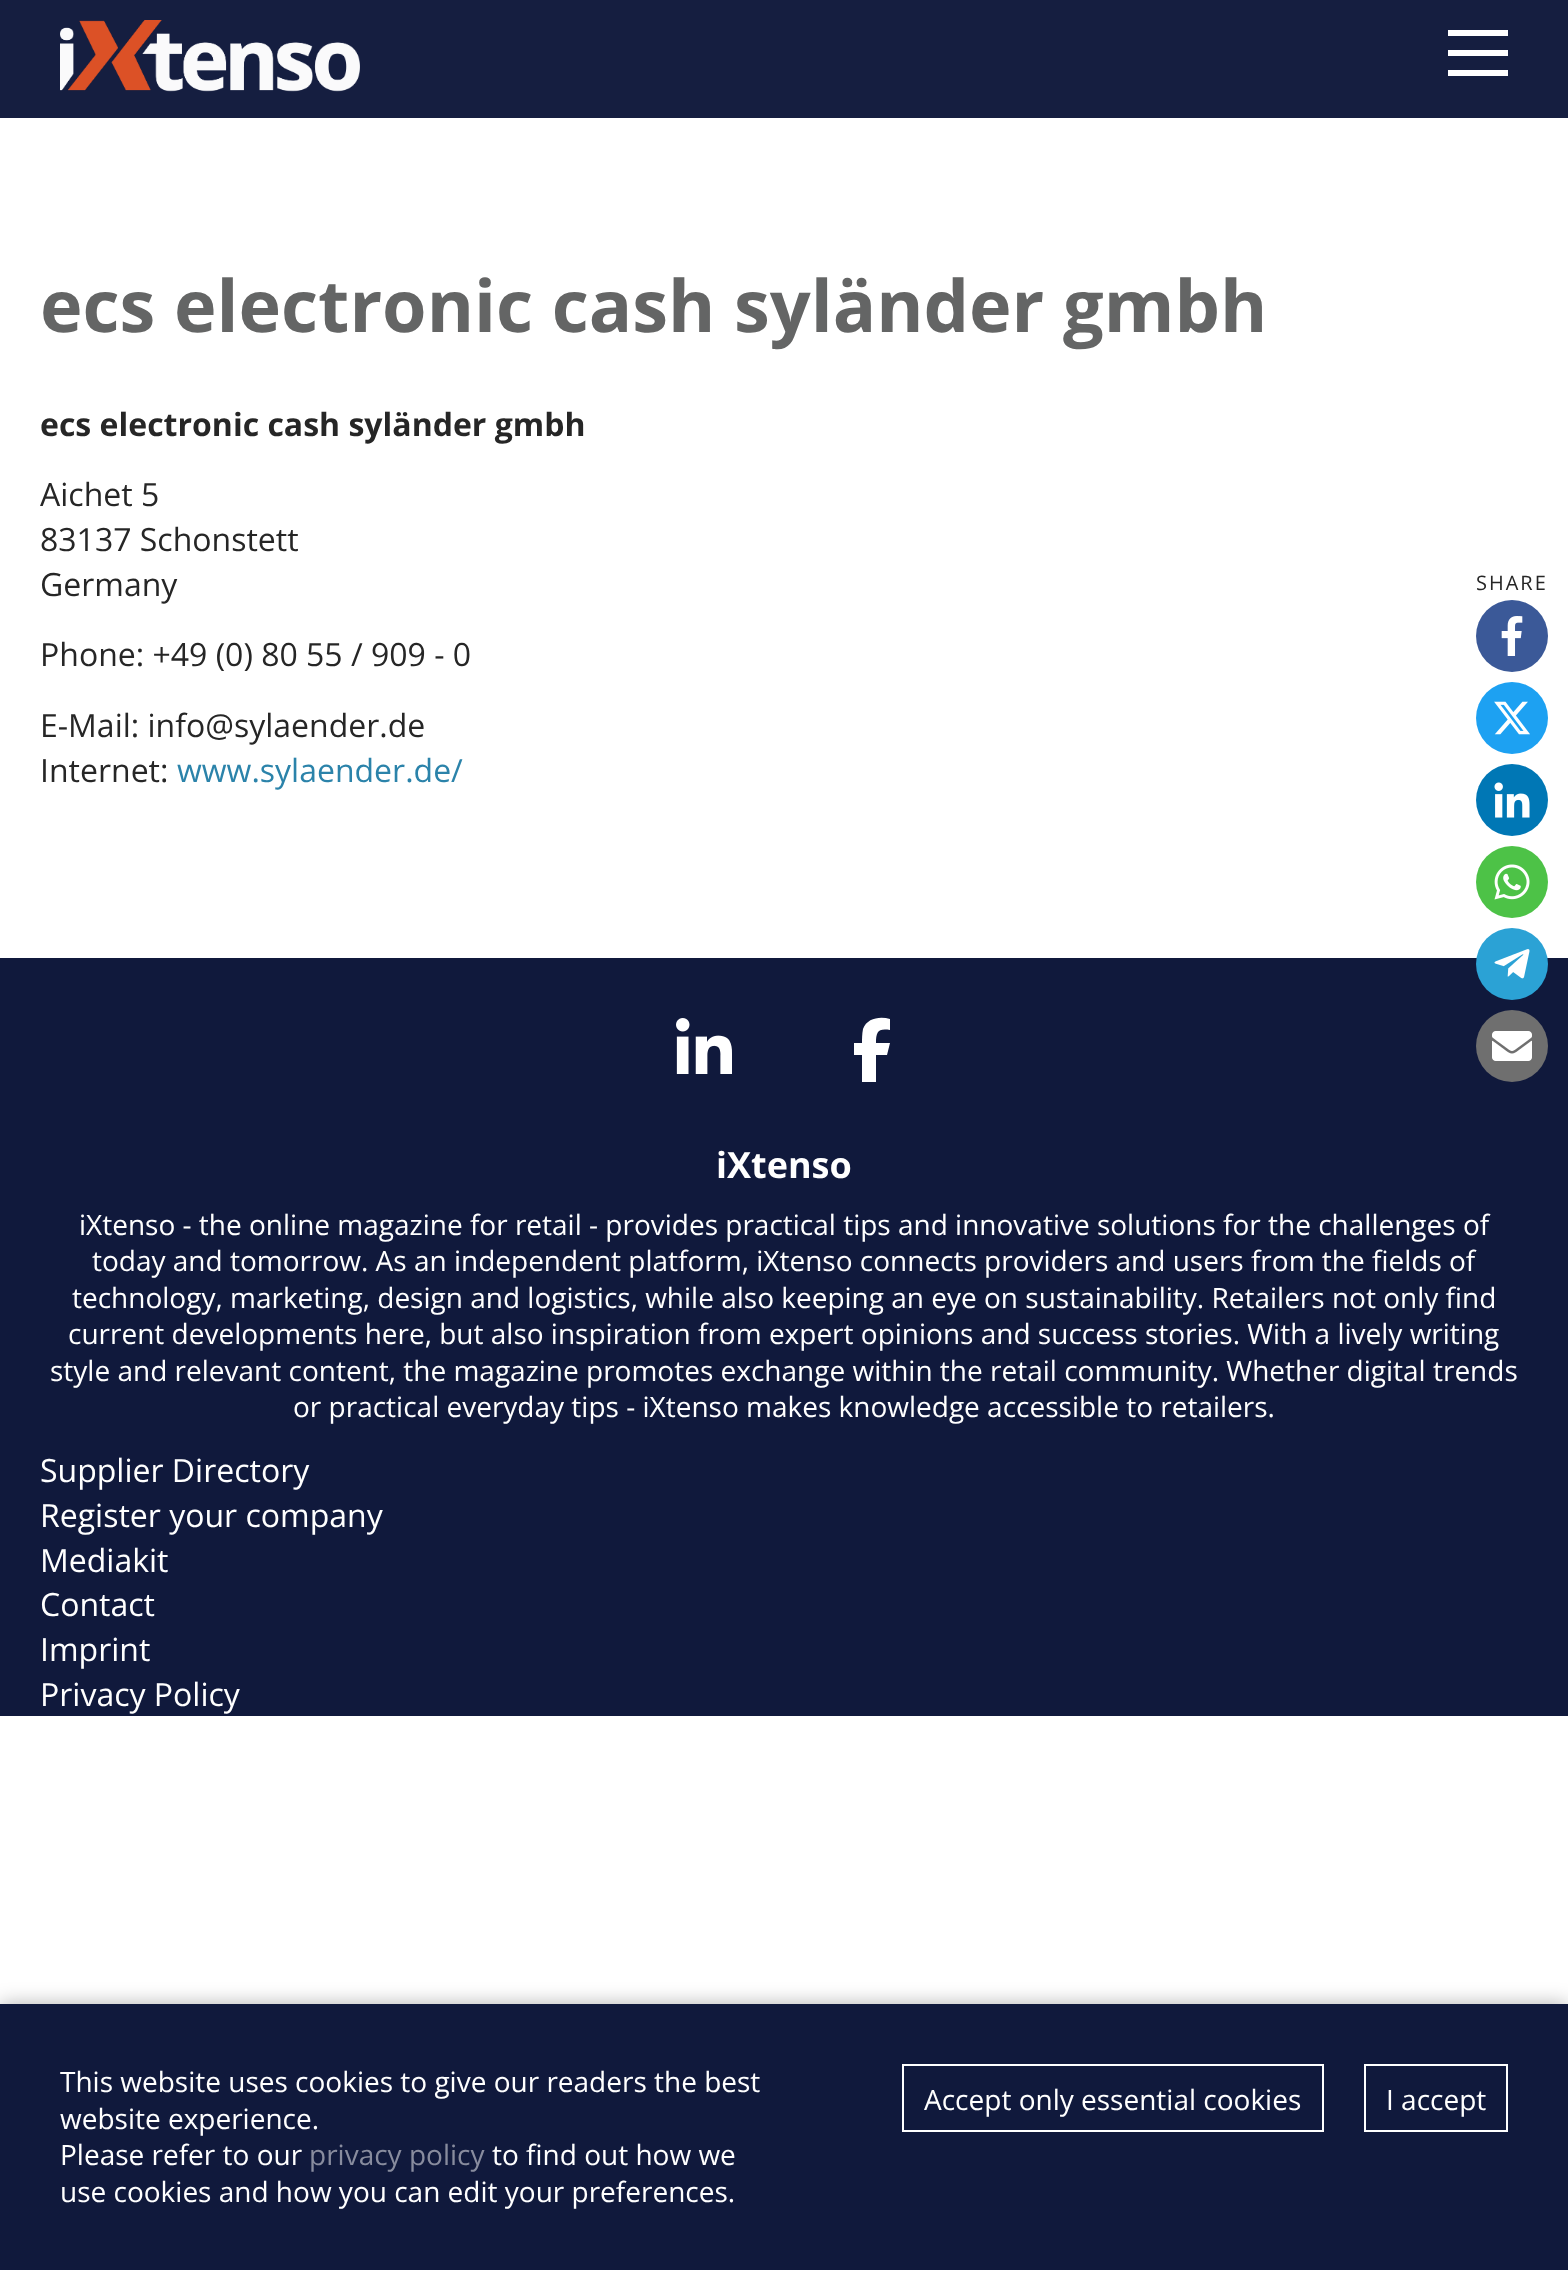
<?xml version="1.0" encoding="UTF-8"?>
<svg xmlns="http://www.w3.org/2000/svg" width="1568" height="2270">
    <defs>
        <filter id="blur1" x="-50%" y="-200%" width="200%" height="500%"><feGaussianBlur stdDeviation="10"/></filter>
    </defs>
    <rect width="100%" height="100%" fill="#FFFFFF"/>
    <rect x="0" y="0" width="1568" height="118" fill="#151E40"/>
    <image x="60" y="20" width="300" height="72" href="img_01.png"/>
    <rect x="1448" y="30" width="60" height="6" fill="#FFFFFF"/>
    <rect x="1448" y="50" width="60" height="6" fill="#FFFFFF"/>
    <rect x="1448" y="70" width="60" height="6" fill="#FFFFFF"/>
    <text x="40" y="332" font-family="Open Sans" font-size="72" font-weight="700" fill="#646565">ecs electronic cash syländer gmbh</text>
    <text x="40" y="436" font-family="Open Sans" font-size="32" font-weight="700" fill="#262626">ecs electronic cash syländer gmbh</text>
    <text font-family="Open Sans" font-size="32" fill="#262626">
        <tspan x="40" y="506">Aichet 5</tspan>
        <tspan x="40" y="551">83137 Schonstett</tspan>
        <tspan x="40" y="596">Germany</tspan>
    </text>
    <text x="40" y="666" font-family="Open Sans" font-size="32" fill="#262626">Phone: +49 (0) 80 55 / 909 - 0</text>
    <text font-family="Open Sans" font-size="32" fill="#262626">
        <tspan x="40" y="737">E-Mail: info@sylaender.de</tspan>
        <tspan x="40" y="782">Internet:</tspan>
    </text>
    <text x="177" y="782" font-family="Open Sans" font-size="32" fill="#2B83AA">www.sylaender.de/</text>
    <text x="1476" y="590" font-family="Open Sans" font-size="20" letter-spacing="2" fill="#262626">SHARE</text>
    <circle cx="1512" cy="636" r="36" fill="#3B5998"/>
    <image x="1501" y="616" width="22" height="40" href="img_02.png"/>
    <circle cx="1512" cy="718" r="36" fill="#1DA1F2"/>
    <image x="1494" y="701" width="36" height="34" href="img_03.png"/>
    <circle cx="1512" cy="800" r="36" fill="#0077B5"/>
    <image x="1494" y="782" width="36" height="36" href="img_04.png"/>
    <circle cx="1512" cy="882" r="36" fill="#4DC247"/>
    <image x="1494" y="864" width="36" height="36" href="img_05.png"/>
    <rect x="0" y="958" width="1568" height="758" fill="#10193C"/>
    <circle cx="1512" cy="964" r="36" fill="#2BA2D5"/>
    <image x="1494" y="949" width="36" height="30" href="img_06.png"/>
    <circle cx="1512" cy="1046" r="36" fill="#6F6F6F"/>
    <image x="1492" y="1031" width="40" height="30" href="img_07.png"/>
    <image x="676" y="1018" width="56" height="56" href="img_08.png"/>
    <path d="M 862 1055 V 1082 V 1055 V 1082 H 876 V 1055 H 887 L 890 1043 H 876 C 876 1032 878 1028 890 1030 V 1019 C 880 1016 867 1018 863 1029 C 862 1034 862 1039 862 1043 H 854 V 1055 Z" fill="#FFFFFF"/>
    <text x="716" y="1178" font-family="Open Sans" font-size="36" font-weight="700" fill="#FFFFFF">iXtenso</text>
    <text x="79" y="1235" font-family="Open Sans" font-size="28" fill="#FFFFFF">iXtenso - the online magazine for retail - provides practical tips and innovative solutions for the challenges of</text>
    <text x="92" y="1271" font-family="Open Sans" font-size="28" fill="#FFFFFF">today and tomorrow. As an independent platform, iXtenso connects providers and users from the fields of</text>
    <text x="72" y="1308" font-family="Open Sans" font-size="28" fill="#FFFFFF">technology, marketing, design and logistics, while also keeping an eye on sustainability. Retailers not only find</text>
    <text x="68" y="1344" font-family="Open Sans" font-size="28" fill="#FFFFFF">current developments here, but also inspiration from expert opinions and success stories. With a lively writing</text>
    <text x="50" y="1381" font-family="Open Sans" font-size="28" fill="#FFFFFF">style and relevant content, the magazine promotes exchange within the retail community. Whether digital trends</text>
    <text x="293" y="1417" font-family="Open Sans" font-size="28" fill="#FFFFFF">or practical everyday tips - iXtenso makes knowledge accessible to retailers.</text>
    <text font-family="Open Sans" font-size="32" fill="#FFFFFF">
        <tspan x="40" y="1482">Supplier Directory</tspan>
        <tspan x="40" y="1527">Register your company</tspan>
        <tspan x="40" y="1572">Mediakit</tspan>
        <tspan x="40" y="1616">Contact</tspan>
        <tspan x="40" y="1661">Imprint</tspan>
        <tspan x="40" y="1706">Privacy Policy</tspan>
    </text>
    <rect x="0" y="2004" width="1568" height="266" fill="#000000" fill-opacity="0.3" filter="url(#blur1)"/>
    <rect x="0" y="2004" width="1568" height="266" fill="#10193C"/>
    <text font-family="Open Sans" font-size="28" fill="#FFFFFF">
        <tspan x="60" y="2092">This website uses cookies to give our readers the best</tspan>
        <tspan x="60" y="2129">website experience.</tspan>
        <tspan x="60" y="2165">Please refer to our</tspan>
    </text>
    <text x="309" y="2165" font-family="Open Sans" font-size="28" fill="#888C9E">privacy policy</text>
    <text x="492" y="2165" font-family="Open Sans" font-size="28" fill="#FFFFFF">to find out how we</text>
    <text x="60" y="2202" font-family="Open Sans" font-size="28" fill="#FFFFFF">use cookies and how you can edit your preferences.</text>
    <rect x="903" y="2065" width="420" height="66" fill="none" stroke="#FFFFFF" stroke-width="2"/>
    <text x="924" y="2110" font-family="Open Sans" font-size="28" fill="#FFFFFF">Accept only essential cookies</text>
    <rect x="1365" y="2065" width="142" height="66" fill="none" stroke="#FFFFFF" stroke-width="2"/>
    <text x="1386" y="2110" font-family="Open Sans" font-size="28" fill="#FFFFFF">I accept</text>
</svg>
